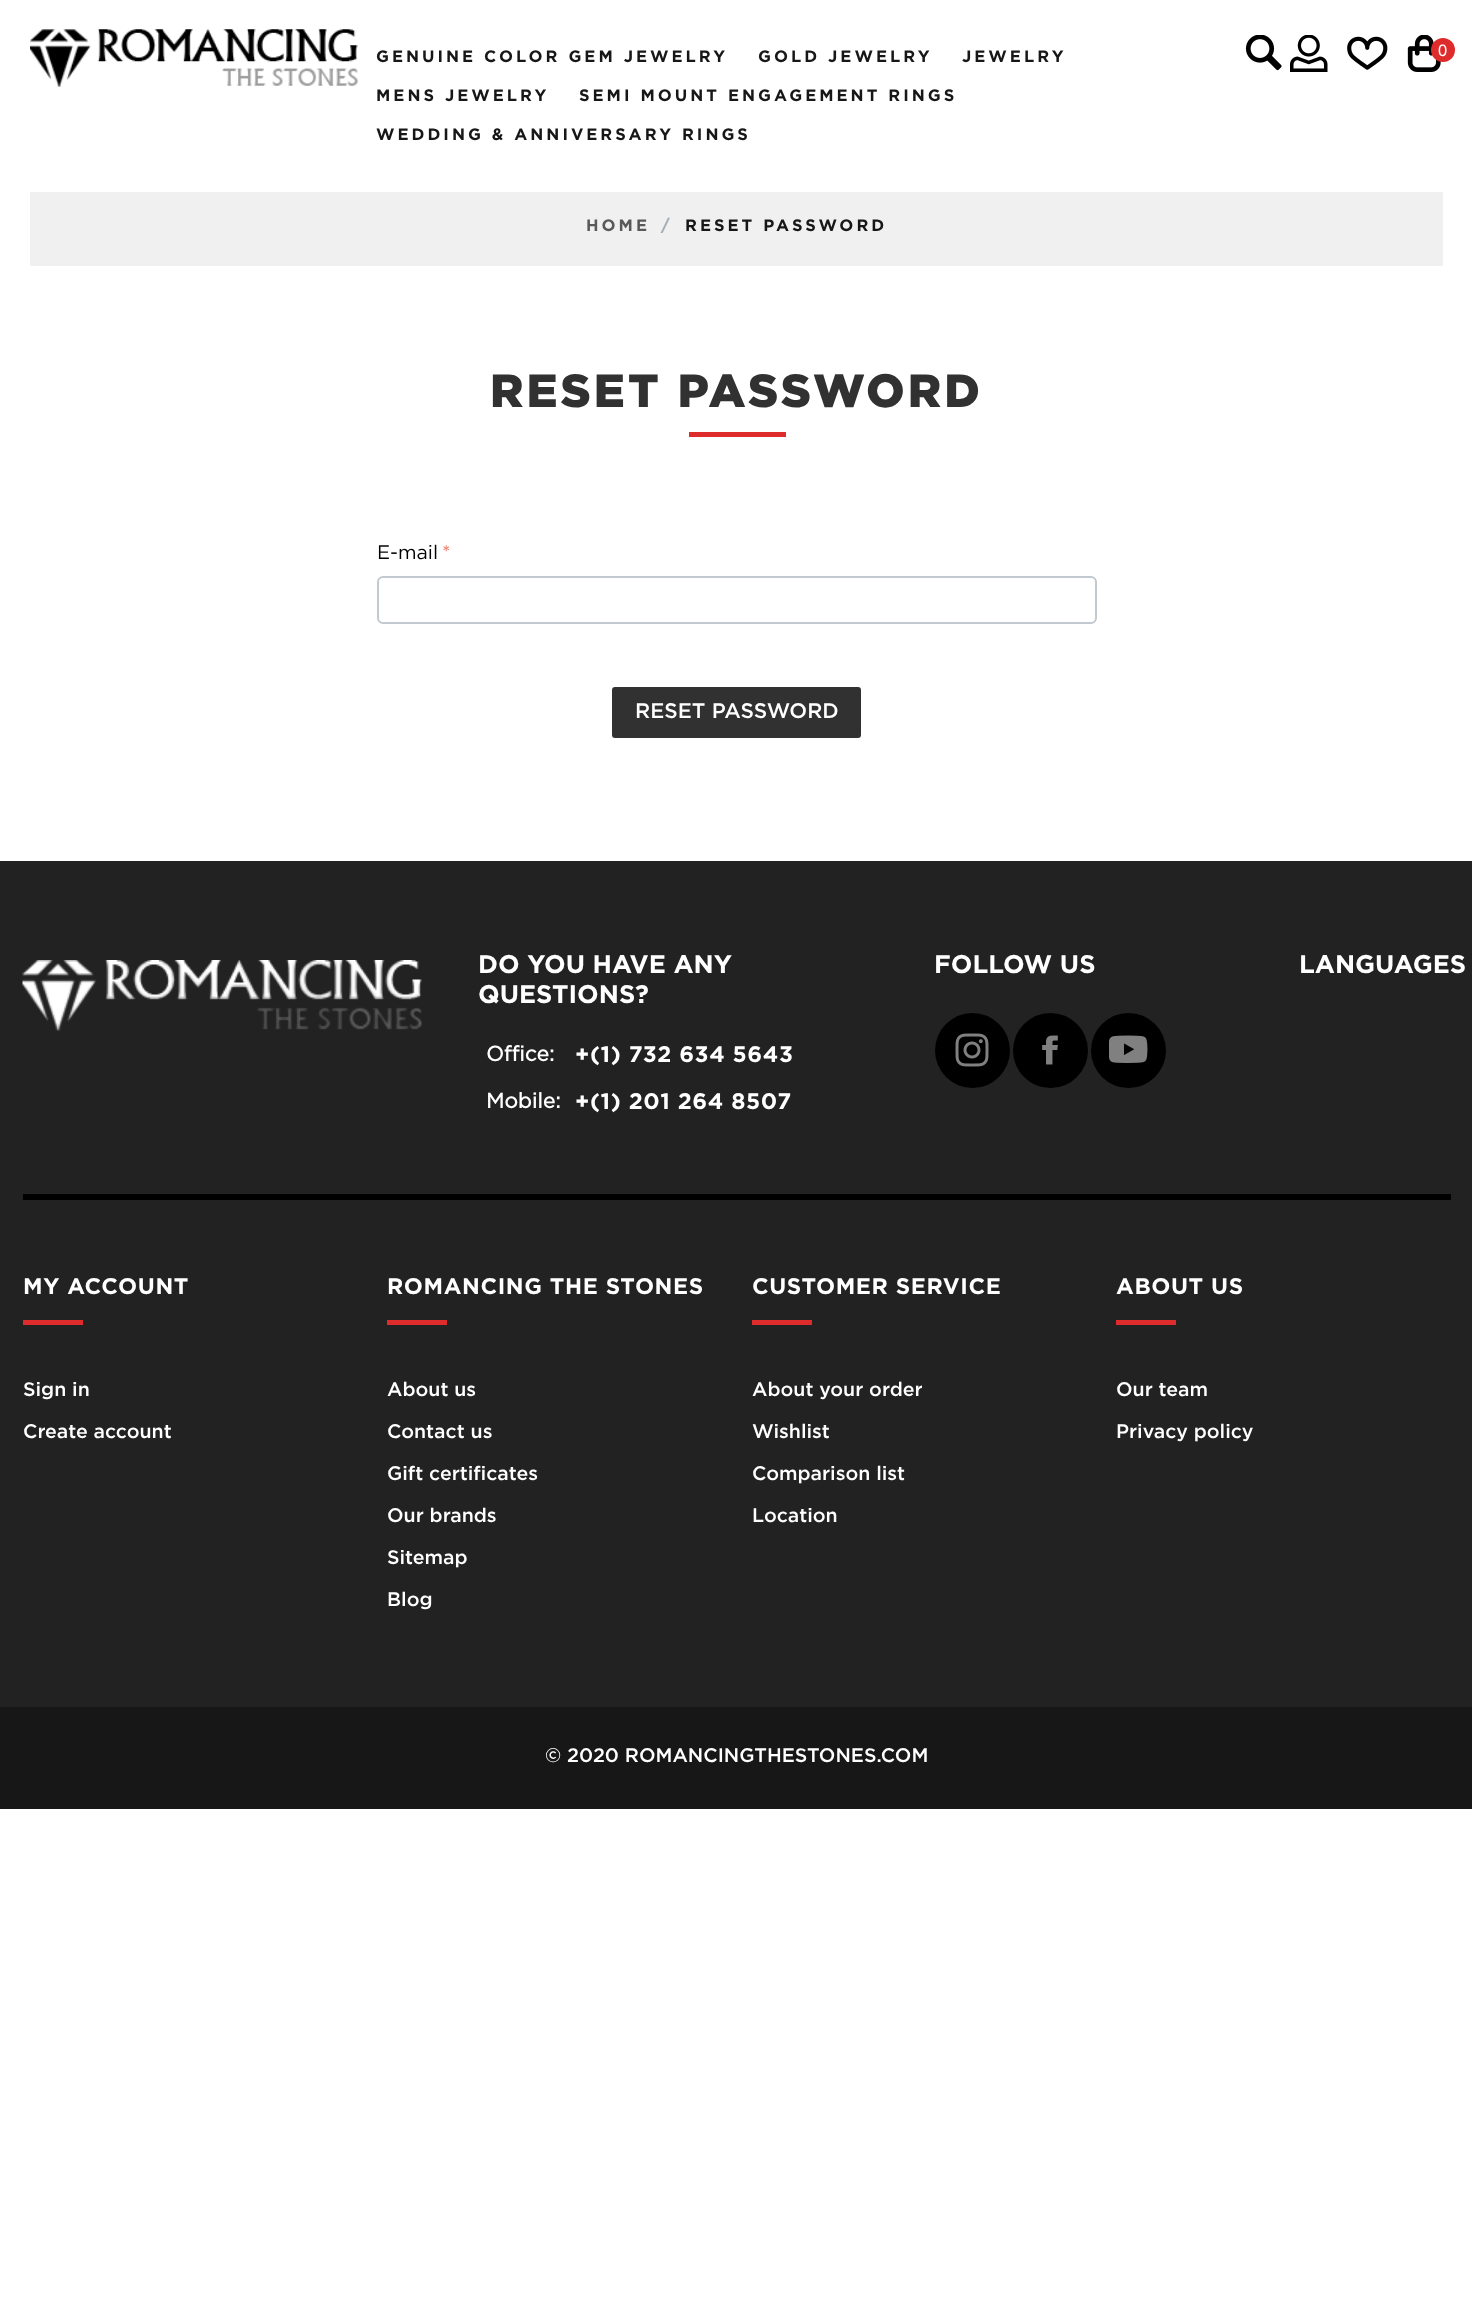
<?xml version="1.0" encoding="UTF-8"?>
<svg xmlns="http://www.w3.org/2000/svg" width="1472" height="2312">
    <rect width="100%" height="100%" fill="#FFFFFF"/>
    <image x="30" y="29" width="328" height="58" href="img_01.png"/>
    <text x="376" y="62" font-family="Gotham" font-size="16.5" font-weight="700" letter-spacing="3" fill="#171717">GENUINE COLOR GEM JEWELRY</text>
    <text x="758" y="62" font-family="Gotham" font-size="16.5" font-weight="700" letter-spacing="3" fill="#171717">GOLD JEWELRY</text>
    <text x="962" y="62" font-family="Gotham" font-size="16.5" font-weight="700" letter-spacing="3" fill="#171717">JEWELRY</text>
    <text x="376" y="101" font-family="Gotham" font-size="16.5" font-weight="700" letter-spacing="3" fill="#171717">MENS JEWELRY</text>
    <text x="579" y="101" font-family="Gotham" font-size="16.5" font-weight="700" letter-spacing="3" fill="#171717">SEMI MOUNT ENGAGEMENT RINGS</text>
    <text x="376" y="140" font-family="Gotham" font-size="16.5" font-weight="700" letter-spacing="3" fill="#171717">WEDDING &amp; ANNIVERSARY RINGS</text>
    <image x="1245" y="35" width="37" height="36" href="img_02.png"/>
    <image x="1290" y="35" width="38" height="37" href="img_03.png"/>
    <image x="1347" y="36" width="41" height="34" href="img_04.png"/>
    <image x="1407" y="35" width="34" height="37" href="img_05.png"/>
    <circle cx="1443" cy="50" r="12" fill="#DE2B2B"/>
    <text x="1438" y="56" font-family="Liberation Sans" font-size="16.5" fill="#FFFFFF">0</text>
    <rect x="30" y="192" width="1413" height="74" fill="#F0F0F0"/>
    <text x="586" y="231" font-family="Gotham" font-size="16.5" font-weight="700" letter-spacing="3" fill="#595959">HOME</text>
    <text x="661" y="231" font-family="Gotham" font-size="16.5" font-weight="700" letter-spacing="3" fill="#A5AFB9">/</text>
    <text x="685" y="231" font-family="Gotham" font-size="16.5" font-weight="700" letter-spacing="3" fill="#171717">RESET PASSWORD</text>
    <text x="490" y="407" font-family="Gotham" font-size="46.5" font-weight="900" letter-spacing="3" fill="#313131">RESET PASSWORD</text>
    <rect x="689" y="432" width="97" height="5" fill="#DE2B2B"/>
    <text x="377" y="559" font-family="Gotham" font-size="19.5" fill="#000000">E-mail</text>
    <text x="442" y="559" font-family="Gotham" font-size="19.5" fill="#EA7162">*</text>
    <rect x="378" y="577" width="718" height="46" rx="5" fill="none" stroke="#C2C9D0" stroke-width="2"/>
    <rect x="612" y="687" width="249" height="51" rx="3" fill="#313131"/>
    <text x="635" y="718" font-family="Gotham" font-size="21" font-weight="500" fill="#FFFFFF">RESET PASSWORD</text>
    <rect x="0" y="861" width="1472" height="846" fill="#222222"/>
    <rect x="23" y="1194" width="1428" height="6" fill="#000000"/>
    <image x="22" y="960" width="400" height="71" href="img_06.png"/>
    <text font-family="Gotham" font-size="25.5" font-weight="700" fill="#FFFFFF">
        <tspan x="478" y="973">DO YOU HAVE ANY</tspan>
        <tspan x="478" y="1003">QUESTIONS?</tspan>
    </text>
    <text x="486" y="1061" font-family="'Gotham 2'" font-size="21" font-weight="700" fill="#FFFFFF">Office:</text>
    <text x="575" y="1062" font-family="Gotham" font-size="22.5" font-weight="700" letter-spacing="0.6" fill="#FFFFFF">+(1) 732 634 5643</text>
    <text x="486" y="1108" font-family="'Gotham 2'" font-size="21" font-weight="700" fill="#FFFFFF">Mobile:</text>
    <text x="575" y="1109" font-family="Gotham" font-size="22.5" font-weight="700" letter-spacing="0.6" fill="#FFFFFF">+(1) 201 264 8507</text>
    <text x="934" y="973" font-family="Gotham" font-size="25.5" font-weight="700" fill="#FFFFFF">FOLLOW US</text>
    <circle cx="972.5" cy="1050.5" r="37.5" fill="#000000"/>
    <image x="955" y="1033" width="34" height="34" href="img_07.png"/>
    <circle cx="1050.5" cy="1050.5" r="37.5" fill="#000000"/>
    <image x="1042" y="1035" width="16" height="30" href="img_08.png"/>
    <circle cx="1128.5" cy="1050.5" r="37.5" fill="#000000"/>
    <image x="1109" y="1035" width="39" height="28" href="img_09.png"/>
    <text x="1299" y="973" font-family="Gotham" font-size="25.5" font-weight="700" fill="#FFFFFF">LANGUAGES</text>
    <text x="23" y="1294" font-family="Gotham" font-size="22.5" font-weight="700" letter-spacing="0.6" fill="#FFFFFF">MY ACCOUNT</text>
    <rect x="23" y="1320" width="60" height="5" fill="#DE2B2B"/>
    <text x="23" y="1396" font-family="Gotham" font-size="19.5" font-weight="500" fill="#FFFFFF">Sign in</text>
    <text x="23" y="1438" font-family="Gotham" font-size="19.5" font-weight="500" fill="#FFFFFF">Create account</text>
    <text x="387" y="1294" font-family="Gotham" font-size="22.5" font-weight="700" letter-spacing="0.6" fill="#FFFFFF">ROMANCING THE STONES</text>
    <rect x="387" y="1320" width="60" height="5" fill="#DE2B2B"/>
    <text x="387" y="1396" font-family="Gotham" font-size="19.5" font-weight="500" fill="#FFFFFF">About us</text>
    <text x="387" y="1438" font-family="Gotham" font-size="19.5" font-weight="500" fill="#FFFFFF">Contact us</text>
    <text x="387" y="1480" font-family="Gotham" font-size="19.5" font-weight="500" fill="#FFFFFF">Gift certificates</text>
    <text x="387" y="1522" font-family="Gotham" font-size="19.5" font-weight="500" fill="#FFFFFF">Our brands</text>
    <text x="387" y="1564" font-family="Gotham" font-size="19.5" font-weight="500" fill="#FFFFFF">Sitemap</text>
    <text x="387" y="1606" font-family="Gotham" font-size="19.5" font-weight="500" fill="#FFFFFF">Blog</text>
    <text x="752" y="1294" font-family="Gotham" font-size="22.5" font-weight="700" letter-spacing="0.6" fill="#FFFFFF">CUSTOMER SERVICE</text>
    <rect x="752" y="1320" width="60" height="5" fill="#DE2B2B"/>
    <text x="752" y="1396" font-family="Gotham" font-size="19.5" font-weight="500" fill="#FFFFFF">About your order</text>
    <text x="752" y="1438" font-family="Gotham" font-size="19.5" font-weight="500" fill="#FFFFFF">Wishlist</text>
    <text x="752" y="1480" font-family="Gotham" font-size="19.5" font-weight="500" fill="#FFFFFF">Comparison list</text>
    <text x="752" y="1522" font-family="Gotham" font-size="19.5" font-weight="500" fill="#FFFFFF">Location</text>
    <text x="1116" y="1294" font-family="Gotham" font-size="22.5" font-weight="700" letter-spacing="0.6" fill="#FFFFFF">ABOUT US</text>
    <rect x="1116" y="1320" width="60" height="5" fill="#DE2B2B"/>
    <text x="1116" y="1396" font-family="Gotham" font-size="19.5" font-weight="500" fill="#FFFFFF">Our team</text>
    <text x="1116" y="1438" font-family="Gotham" font-size="19.5" font-weight="500" fill="#FFFFFF">Privacy policy</text>
    <rect x="0" y="1707" width="1472" height="102" fill="#171717"/>
    <text x="545" y="1762" font-family="Gotham" font-size="19.5" font-weight="500" fill="#FFFFFF">© 2020 ROMANCINGTHESTONES.COM</text>
</svg>
